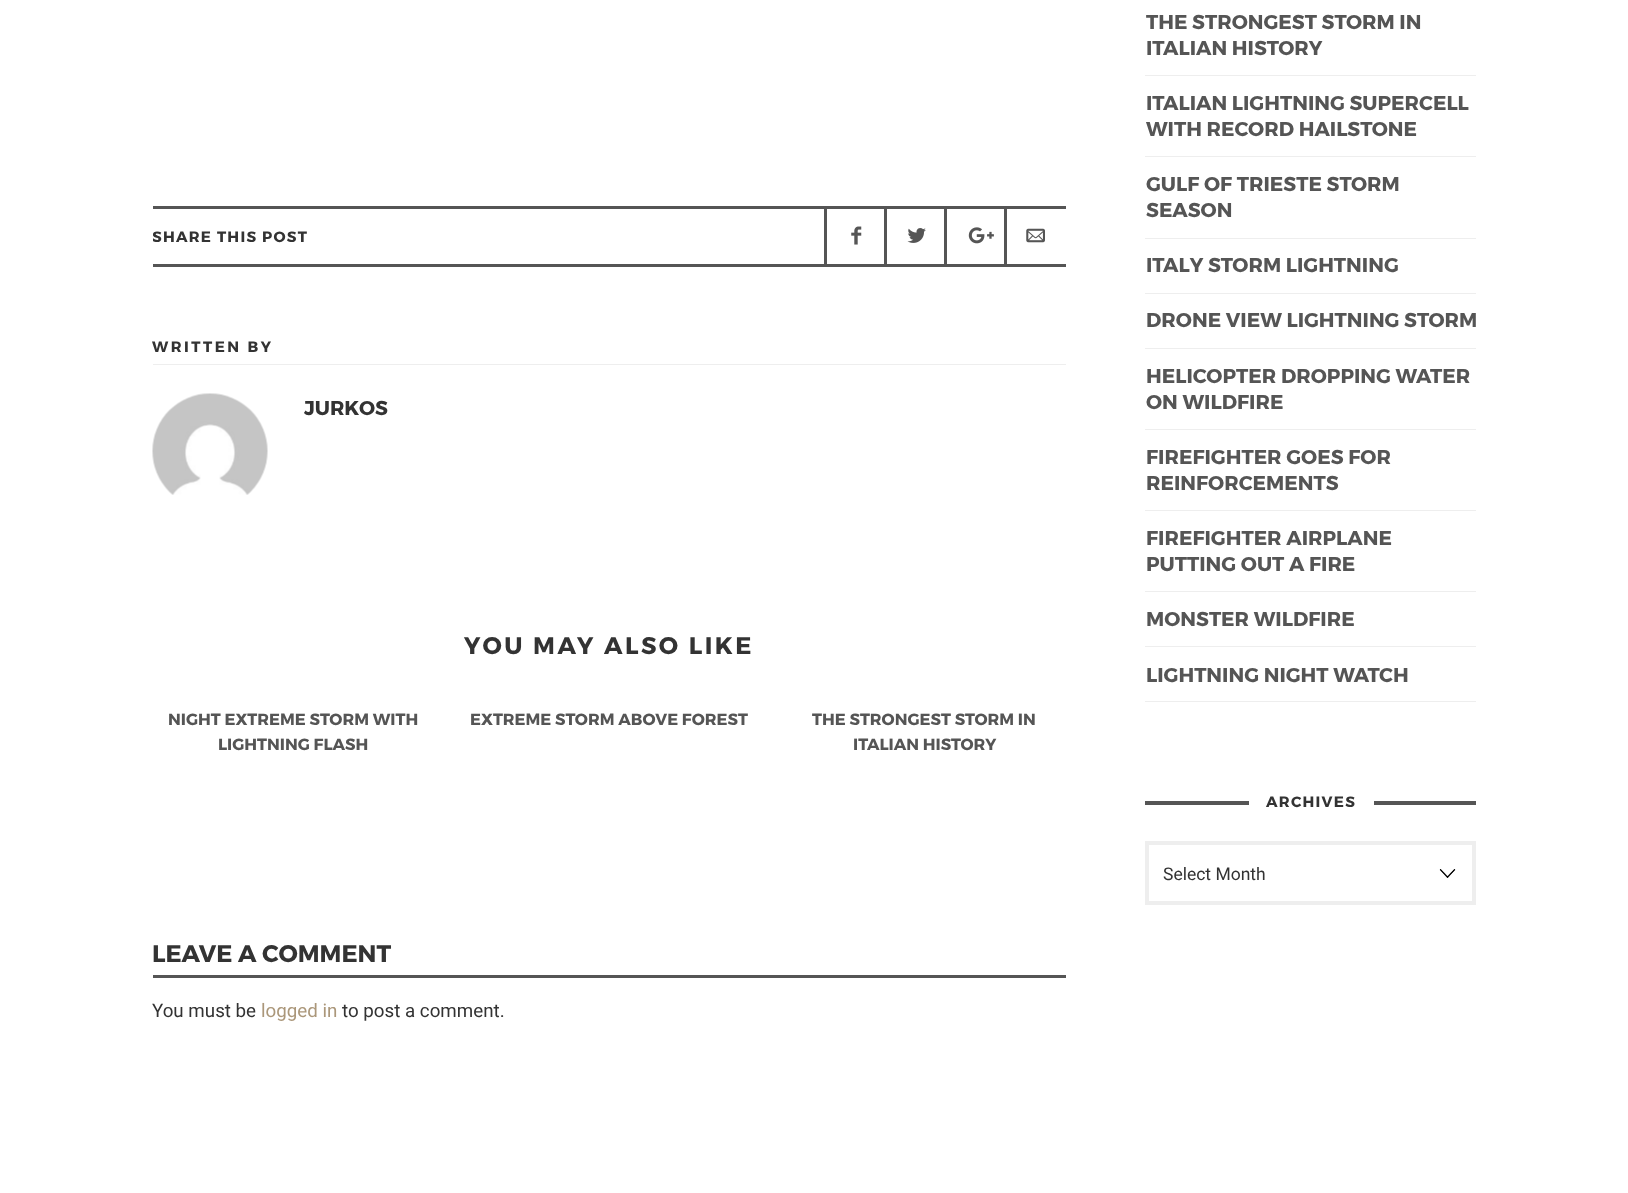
<?xml version="1.0" encoding="UTF-8"?>
<svg xmlns="http://www.w3.org/2000/svg" width="1628" height="1193">
    <defs>
        <clipPath id="clip1"><rect x="153" y="209" width="913" height="55"/></clipPath>
    </defs>
    <rect width="100%" height="100%" fill="#FFFFFF"/>
    <rect x="153" y="206" width="913" height="3" fill="#555555"/>
    <rect x="153" y="264" width="913" height="3" fill="#555555"/>
    <g clip-path="url(#clip1)">
        <text x="152" y="242" font-family="Montserrat" font-size="15" font-weight="700" letter-spacing="1.25" fill="#333333">SHARE THIS POST</text>
    </g>
    <rect x="824" y="209" width="3" height="55" fill="#555555"/>
    <image x="851" y="226" width="11" height="19" href="img_01.png"/>
    <rect x="884" y="209" width="3" height="55" fill="#555555"/>
    <image x="907" y="228" width="19" height="15" href="img_02.png"/>
    <rect x="944" y="209" width="3" height="55" fill="#555555"/>
    <image x="968" y="227" width="26" height="17" href="img_03.png"/>
    <rect x="1004" y="209" width="3" height="55" fill="#555555"/>
    <image x="1026" y="228" width="19" height="15" href="img_04.png"/>
    <rect x="153" y="364" width="913" height="1" fill="#EEEEEE"/>
    <text x="152" y="352" font-family="Montserrat" font-size="15" font-weight="700" letter-spacing="2.5" fill="#333333">WRITTEN BY</text>
    <image x="152" y="393" width="116" height="102" href="img_05.png"/>
    <text x="304" y="415" font-family="Montserrat" font-size="20" font-weight="700" fill="#333333">JURKOS</text>
    <text x="464" y="654" font-family="Montserrat" font-size="24" font-weight="700" letter-spacing="2.5" fill="#333333">YOU MAY ALSO LIKE</text>
    <text x="168" y="725" font-family="Montserrat" font-size="16.25" font-weight="700" fill="#555555">NIGHT EXTREME STORM WITH</text>
    <text x="218" y="750" font-family="Montserrat" font-size="16.25" font-weight="700" fill="#555555">LIGHTNING FLASH</text>
    <text x="470" y="725" font-family="Montserrat" font-size="16.25" font-weight="700" fill="#555555">EXTREME STORM ABOVE FOREST</text>
    <text x="812" y="725" font-family="Montserrat" font-size="16.25" font-weight="700" fill="#555555">THE STRONGEST STORM IN</text>
    <text x="853" y="750" font-family="Montserrat" font-size="16.25" font-weight="700" fill="#555555">ITALIAN HISTORY</text>
    <rect x="153" y="975" width="913" height="3" fill="#555555"/>
    <text x="152" y="962" font-family="Montserrat" font-size="24" font-weight="700" fill="#333333">LEAVE A COMMENT</text>
    <text x="152" y="1017" font-family="Roboto" font-size="18.75" fill="#333333">You must be</text>
    <text x="261" y="1017" font-family="Roboto" font-size="18.75" fill="#AB977A">logged in</text>
    <text x="342" y="1017" font-family="Roboto" font-size="18.75" fill="#333333">to post a comment.</text>
    <rect x="1145" y="75" width="331" height="1" fill="#EEEEEE"/>
    <text font-family="Montserrat" font-size="20" font-weight="700" fill="#555555">
        <tspan x="1146" y="29">THE STRONGEST STORM IN</tspan>
        <tspan x="1146" y="55">ITALIAN HISTORY</tspan>
    </text>
    <rect x="1145" y="156" width="331" height="1" fill="#EEEEEE"/>
    <text font-family="Montserrat" font-size="20" font-weight="700" fill="#555555">
        <tspan x="1146" y="110">ITALIAN LIGHTNING SUPERCELL</tspan>
        <tspan x="1146" y="136">WITH RECORD HAILSTONE</tspan>
    </text>
    <rect x="1145" y="238" width="331" height="1" fill="#EEEEEE"/>
    <text font-family="Montserrat" font-size="20" font-weight="700" fill="#555555">
        <tspan x="1146" y="191">GULF OF TRIESTE STORM</tspan>
        <tspan x="1146" y="217">SEASON</tspan>
    </text>
    <rect x="1145" y="293" width="331" height="1" fill="#EEEEEE"/>
    <text x="1146" y="272" font-family="Montserrat" font-size="20" font-weight="700" fill="#555555">ITALY STORM LIGHTNING</text>
    <rect x="1145" y="348" width="331" height="1" fill="#EEEEEE"/>
    <text x="1146" y="327" font-family="Montserrat" font-size="20" font-weight="700" fill="#555555">DRONE VIEW LIGHTNING STORM</text>
    <rect x="1145" y="429" width="331" height="1" fill="#EEEEEE"/>
    <text font-family="Montserrat" font-size="20" font-weight="700" fill="#555555">
        <tspan x="1146" y="383">HELICOPTER DROPPING WATER</tspan>
        <tspan x="1146" y="409">ON WILDFIRE</tspan>
    </text>
    <rect x="1145" y="510" width="331" height="1" fill="#EEEEEE"/>
    <text font-family="Montserrat" font-size="20" font-weight="700" fill="#555555">
        <tspan x="1146" y="464">FIREFIGHTER GOES FOR</tspan>
        <tspan x="1146" y="490">REINFORCEMENTS</tspan>
    </text>
    <rect x="1145" y="591" width="331" height="1" fill="#EEEEEE"/>
    <text font-family="Montserrat" font-size="20" font-weight="700" fill="#555555">
        <tspan x="1146" y="545">FIREFIGHTER AIRPLANE</tspan>
        <tspan x="1146" y="571">PUTTING OUT A FIRE</tspan>
    </text>
    <rect x="1145" y="646" width="331" height="1" fill="#EEEEEE"/>
    <text x="1146" y="626" font-family="Montserrat" font-size="20" font-weight="700" fill="#555555">MONSTER WILDFIRE</text>
    <rect x="1145" y="701" width="331" height="1" fill="#EEEEEE"/>
    <text x="1146" y="682" font-family="Montserrat" font-size="20" font-weight="700" fill="#555555">LIGHTNING NIGHT WATCH</text>
    <rect x="1145" y="801" width="331" height="4" fill="#555555"/>
    <rect x="1249" y="801" width="125" height="4" fill="#FFFFFF"/>
    <text x="1266" y="807" font-family="Montserrat" font-size="15" font-weight="700" letter-spacing="1.25" fill="#333333">ARCHIVES</text>
    <image x="1439" y="869" width="17" height="9" href="img_06.png"/>
    <rect x="1147" y="843" width="327" height="60" fill="none" stroke="#EEEEEE" stroke-width="4"/>
    <text x="1163" y="880" font-family="Roboto" font-size="17.5" fill="#333333">Select Month</text>
</svg>
